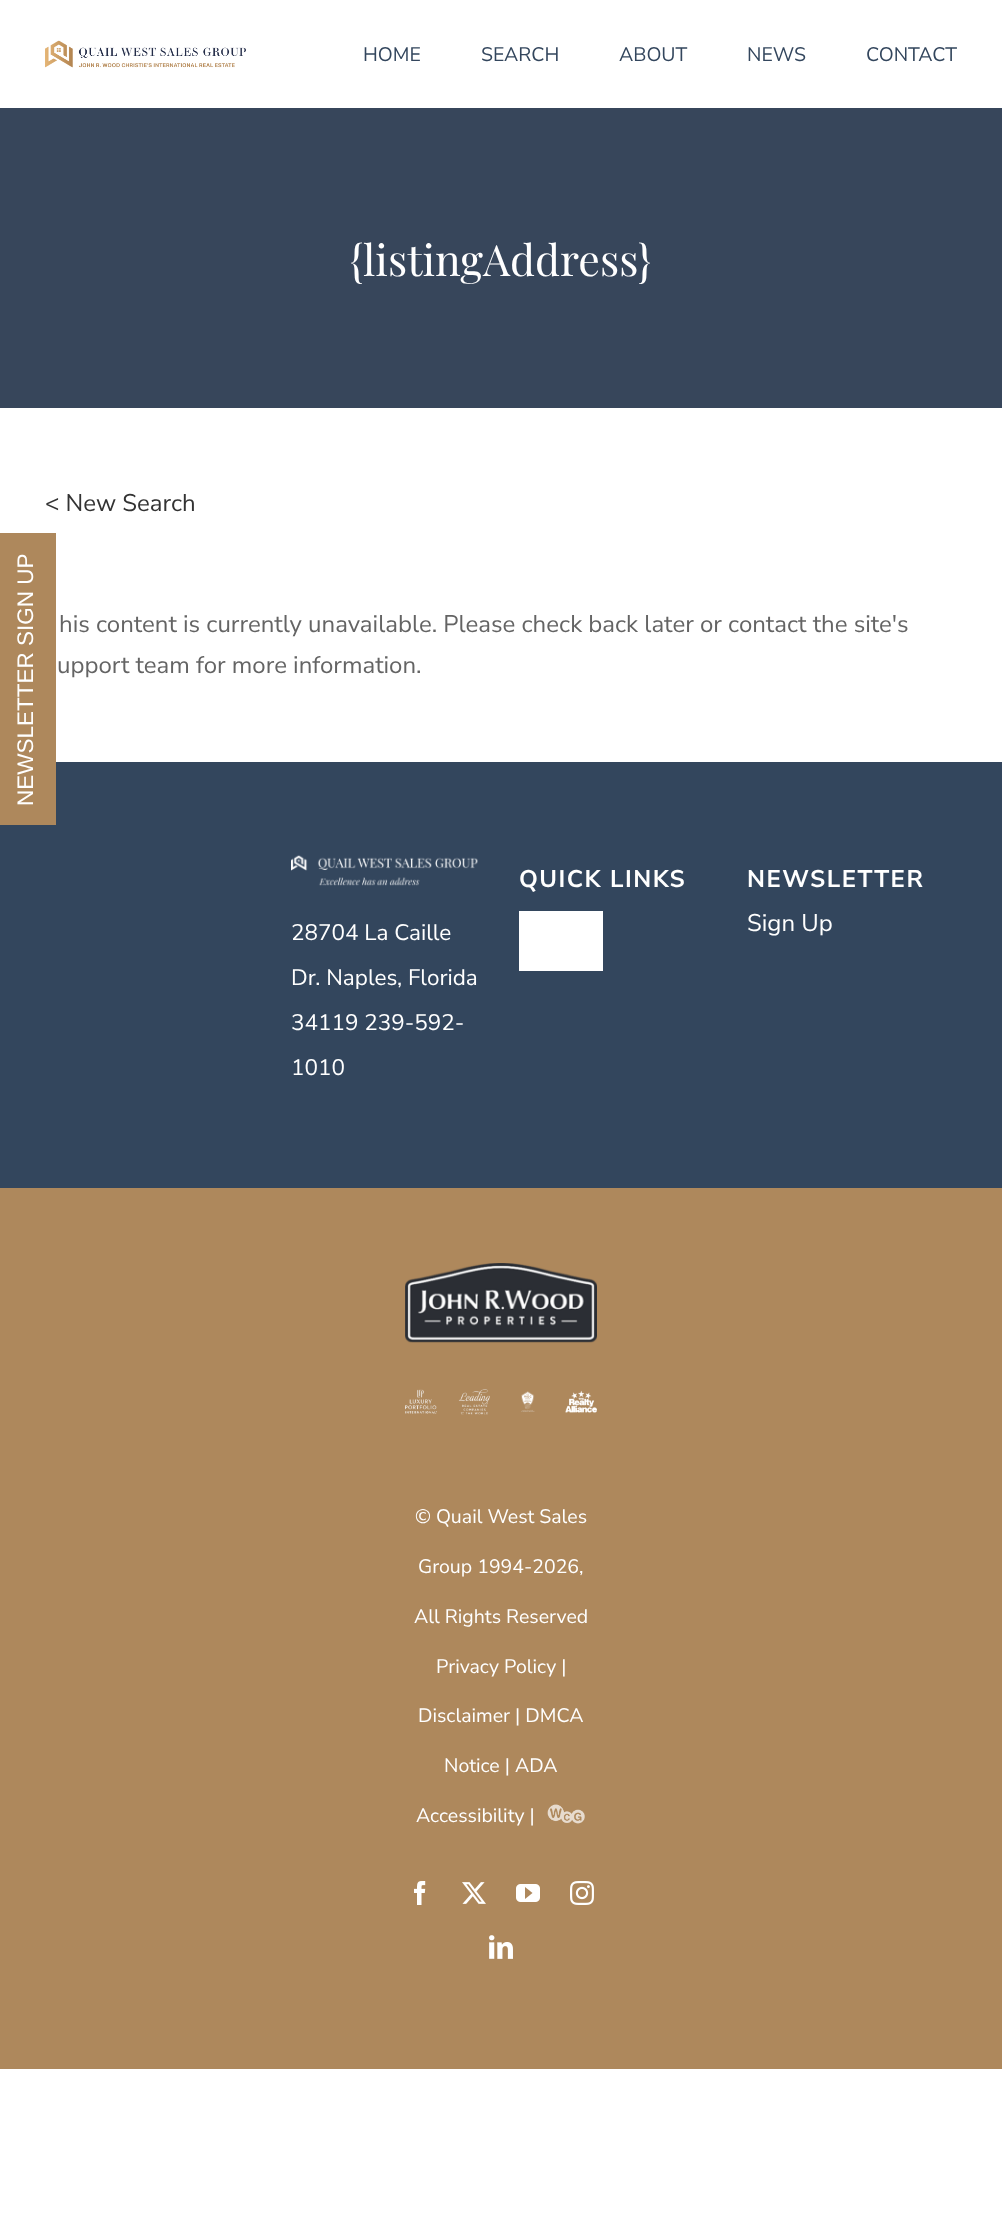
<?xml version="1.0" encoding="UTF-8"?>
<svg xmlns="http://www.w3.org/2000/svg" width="1002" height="2219">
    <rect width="100%" height="100%" fill="#FFFFFF"/>
    <rect x="0" y="762" width="1002" height="426" fill="#33465D"/>
    <rect x="0" y="533" width="56" height="292" fill="#AE885C"/>
    <text x="33" y="806" transform="rotate(-90 33 806)" font-family="Liberation Sans" font-size="22.5" fill="#FFFFFF">NEWSLETTER SIGN UP</text>
    <image x="45" y="40" width="201" height="28" href="img_01.png"/>
    <text x="363" y="61" font-family="Nunito Sans" font-size="19.5" fill="#33465D">HOME</text>
    <text x="481" y="61" font-family="Nunito Sans" font-size="19.5" fill="#33465D">SEARCH</text>
    <text x="619" y="61" font-family="Nunito Sans" font-size="19.5" fill="#33465D">ABOUT</text>
    <text x="747" y="61" font-family="Nunito Sans" font-size="19.5" fill="#33465D">NEWS</text>
    <text x="866" y="61" font-family="Nunito Sans" font-size="19.5" fill="#33465D">CONTACT</text>
    <rect x="0" y="108" width="1002" height="300" fill="#37465B"/>
    <text x="350" y="276" font-family="Playfair Display" font-size="43" fill="#FFFFFF">{listingAddress}</text>
    <text x="45" y="511" font-family="Nunito Sans" font-size="24" fill="#333333">&lt; New Search</text>
    <text x="59" y="632" font-family="Nunito Sans" font-size="24" fill="#646464">his content is currently unavailable. Please check back later or contact the site's</text>
    <text x="57" y="673" font-family="Nunito Sans" font-size="24" fill="#646464">upport team for more information.</text>
    <text x="519" y="887" font-family="Nunito Sans" font-size="24" font-weight="700" letter-spacing="1.5" fill="#FFFFFF">QUICK LINKS</text>
    <rect x="519" y="911" width="84" height="60" fill="#FFFFFF"/>
    <text x="747" y="887" font-family="Nunito Sans" font-size="24" font-weight="700" letter-spacing="1.5" fill="#FFFFFF">NEWSLETTER</text>
    <text x="747" y="931" font-family="Nunito Sans" font-size="24" fill="#FFFFFF">Sign Up</text>
    <image x="291" y="855" width="187" height="31" href="img_02.png"/>
    <text x="291" y="940" font-family="Nunito Sans" font-size="22.5" fill="#FFFFFF">28704 La Caille</text>
    <text x="291" y="985" font-family="Nunito Sans" font-size="22.5" fill="#FFFFFF">Dr. Naples, Florida</text>
    <text x="291" y="1030" font-family="Nunito Sans" font-size="22.5" fill="#FFFFFF">34119 239-592-</text>
    <text x="291" y="1075" font-family="Nunito Sans" font-size="22.5" fill="#FFFFFF">1010</text>
    <rect x="0" y="1188" width="1002" height="881" fill="#AE885C"/>
    <image x="405" y="1263" width="192" height="80" href="img_03.png"/>
    <image x="405" y="1389" width="192" height="26" href="img_04.png"/>
    <text x="415" y="1523" font-family="Nunito Sans" font-size="19.5" fill="#FFFFFF">© Quail West Sales</text>
    <text x="418" y="1573" font-family="Nunito Sans" font-size="19.5" fill="#FFFFFF">Group 1994-2026,</text>
    <text x="414" y="1623" font-family="Nunito Sans" font-size="19.5" fill="#FFFFFF">All Rights Reserved</text>
    <text x="436" y="1673" font-family="Nunito Sans" font-size="19.5" fill="#FFFFFF">Privacy Policy |</text>
    <text x="418" y="1722" font-family="Nunito Sans" font-size="19.5" fill="#FFFFFF">Disclaimer | DMCA</text>
    <text x="444" y="1772" font-family="Nunito Sans" font-size="19.5" fill="#FFFFFF">Notice | ADA</text>
    <text x="416" y="1822" font-family="Nunito Sans" font-size="19.5" fill="#FFFFFF">Accessibility |</text>
    <image x="547" y="1804" width="38" height="20" href="img_05.png"/>
    <image x="414" y="1881" width="12" height="24" href="img_06.png"/>
    <image x="462" y="1882" width="24" height="22" href="img_07.png"/>
    <image x="516" y="1884" width="24" height="18" href="img_08.png"/>
    <image x="570" y="1881" width="24" height="24" href="img_09.png"/>
    <image x="489" y="1935" width="24" height="24" href="img_10.png"/>
</svg>
